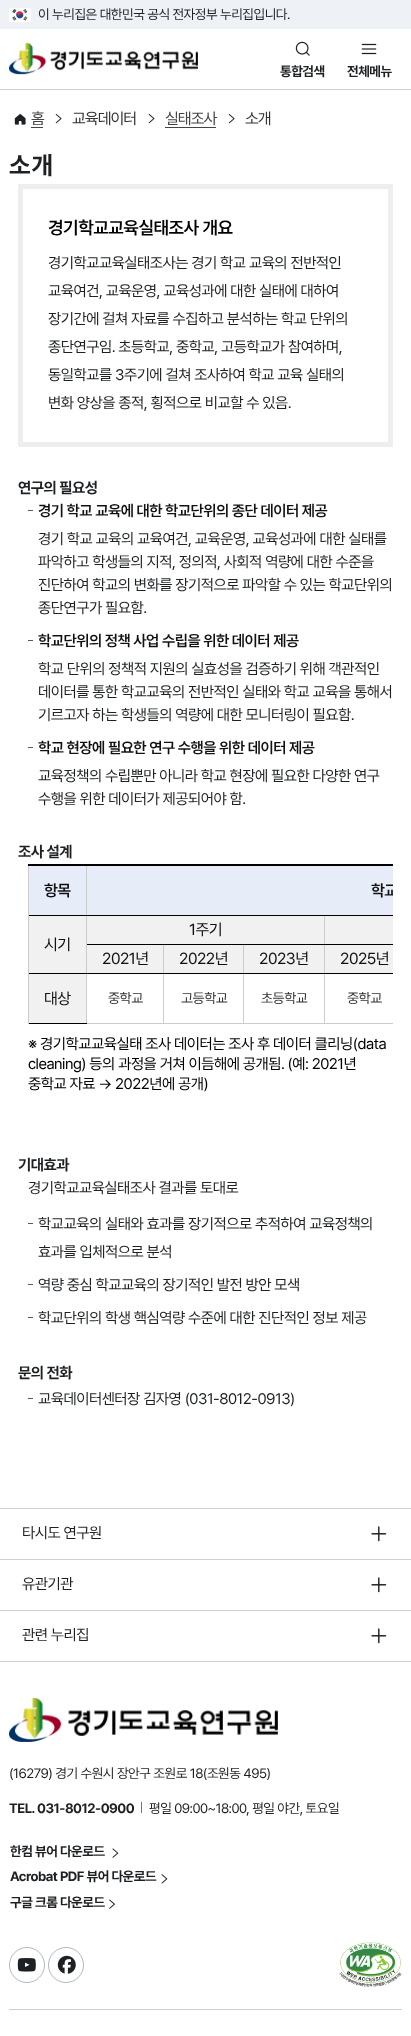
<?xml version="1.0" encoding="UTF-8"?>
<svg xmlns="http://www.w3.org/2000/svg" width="411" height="2036">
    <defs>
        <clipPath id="clip1"><rect x="28" y="864" width="365" height="260"/></clipPath>
    </defs>
    <rect width="100%" height="100%" fill="#FFFFFF"/>
    <rect x="0" y="0" width="411" height="29" fill="#EEF2F7"/>
    <image x="9" y="8" width="22" height="14" href="img_01.png"/>
    <text x="38" y="19" font-family="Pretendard" font-size="13.5" letter-spacing="-0.5" fill="#1E2124">이 누리집은 대한민국 공식 전자정부 누리집입니다.</text>
    <rect x="0" y="89" width="411" height="1" fill="#CDD1D5"/>
    <image x="9" y="43" width="189" height="32" href="img_02.png"/>
    <image x="295" y="41" width="15" height="15" href="img_03.png"/>
    <text x="280" y="76" font-family="Pretendard" font-size="13.5" font-weight="700" letter-spacing="-0.5" fill="#1E2124">통합검색</text>
    <image x="361" y="43" width="16" height="12" href="img_04.png"/>
    <text x="347" y="76" font-family="Pretendard" font-size="13.5" font-weight="700" letter-spacing="-0.5" fill="#1E2124">전체메뉴</text>
    <image x="14" y="113" width="12" height="12" href="img_05.png"/>
    <text x="31" y="124" font-family="Pretendard" font-size="16" letter-spacing="-1" fill="#444444">홈</text>
    <rect x="31" y="127" width="12" height="1" fill="#444444"/>
    <image x="55" y="114" width="7" height="10" href="img_06.png"/>
    <text x="72" y="124" font-family="Pretendard" font-size="16" letter-spacing="-1" fill="#333333">교육데이터</text>
    <image x="148" y="113" width="7" height="11" href="img_07.png"/>
    <text x="165" y="124" font-family="Pretendard" font-size="16" letter-spacing="-1" fill="#444444">실태조사</text>
    <rect x="165" y="127" width="51" height="1" fill="#444444"/>
    <image x="228" y="114" width="7" height="10" href="img_08.png"/>
    <text x="245" y="124" font-family="Pretendard" font-size="16" letter-spacing="-1" fill="#333333">소개</text>
    <text x="9" y="174" font-family="Pretendard" font-size="25" font-weight="700" letter-spacing="1" fill="#1E2124">소개</text>
    <rect x="20.5" y="186.5" width="370" height="258" fill="none" stroke="#EEEEEE" stroke-width="5"/>
    <text x="48" y="234" font-family="Pretendard" font-size="18" font-weight="600" letter-spacing="-0.5" fill="#000000">경기학교교육실태조사 개요</text>
    <text font-family="Pretendard" font-size="15.3" letter-spacing="-0.5" fill="#1E2124">
        <tspan x="48" y="268">경기학교교육실태조사는 경기 학교 교육의 전반적인</tspan>
        <tspan x="48" y="296">교육여건, 교육운영, 교육성과에 대한 실태에 대하여</tspan>
        <tspan x="48" y="324">장기간에 걸쳐 자료를 수집하고 분석하는 학교 단위의</tspan>
        <tspan x="48" y="352">종단연구임. 초등학교, 중학교, 고등학교가 참여하며,</tspan>
        <tspan x="48" y="380">동일학교를 3주기에 걸쳐 조사하여 학교 교육 실태의</tspan>
        <tspan x="48" y="408">변화 양상을 종적, 횡적으로 비교할 수 있음.</tspan>
    </text>
    <text x="18" y="493" font-family="Pretendard" font-size="15.3" font-weight="700" letter-spacing="-0.5" fill="#1E2124">연구의 필요성</text>
    <rect x="28" y="510" width="5" height="1" fill="#595959"/>
    <text x="38" y="516" font-family="Pretendard" font-size="15.3" font-weight="600" letter-spacing="-0.5" fill="#111111">경기 학교 교육에 대한 학교단위의 종단 데이터 제공</text>
    <text font-family="Pretendard" font-size="15.3" letter-spacing="-0.5" fill="#1E2124">
        <tspan x="38" y="544">경기 학교 교육의 교육여건, 교육운영, 교육성과에 대한 실태를</tspan>
        <tspan x="38" y="567">파악하고 학생들의 지적, 정의적, 사회적 역량에 대한 수준을</tspan>
        <tspan x="38" y="590">진단하여 학교의 변화를 장기적으로 파악할 수 있는 학교단위의</tspan>
        <tspan x="38" y="613">종단연구가 필요함.</tspan>
    </text>
    <rect x="28" y="640" width="5" height="1" fill="#595959"/>
    <text x="38" y="646" font-family="Pretendard" font-size="15.3" font-weight="600" letter-spacing="-0.5" fill="#111111">학교단위의 정책 사업 수립을 위한 데이터 제공</text>
    <text font-family="Pretendard" font-size="15.3" letter-spacing="-0.5" fill="#1E2124">
        <tspan x="38" y="674">학교 단위의 정책적 지원의 실효성을 검증하기 위해 객관적인</tspan>
        <tspan x="38" y="697">데이터를 통한 학교교육의 전반적인 실태와 학교 교육을 통해서</tspan>
        <tspan x="38" y="720">기르고자 하는 학생들의 역량에 대한 모니터링이 필요함.</tspan>
    </text>
    <rect x="28" y="747" width="5" height="1" fill="#595959"/>
    <text x="38" y="753" font-family="Pretendard" font-size="15.3" font-weight="600" letter-spacing="-0.5" fill="#111111">학교 현장에 필요한 연구 수행을 위한 데이터 제공</text>
    <text font-family="Pretendard" font-size="15.3" letter-spacing="-0.5" fill="#1E2124">
        <tspan x="38" y="781">교육정책의 수립뿐만 아니라 학교 현장에 필요한 다양한 연구</tspan>
        <tspan x="38" y="804">수행을 위한 데이터가 제공되어야 함.</tspan>
    </text>
    <text x="18" y="857" font-family="Pretendard" font-size="15.3" font-weight="700" letter-spacing="-0.5" fill="#1E2124">조사 설계</text>
    <rect x="86" y="915" width="307" height="1" fill="#000000"/>
    <rect x="86" y="865" width="1" height="51" fill="#CCCCCC"/>
    <rect x="28" y="915" width="59" height="1" fill="#000000"/>
    <rect x="28" y="865" width="1" height="51" fill="#CCCCCC"/>
    <rect x="28" y="864" width="365" height="2" fill="#000000"/>
    <rect x="29" y="866" width="57" height="49" fill="#E6ECF8"/>
    <text x="44" y="896" font-family="Pretendard" font-size="16" font-weight="600" letter-spacing="-0.5" fill="#111111">항목</text>
    <rect x="87" y="866" width="306" height="49" fill="#E6ECF8"/>
    <g clip-path="url(#clip1)">
        <text x="371" y="896" font-family="Pretendard" font-size="16" font-weight="600" letter-spacing="-0.5" fill="#111111">학교</text>
    </g>
    <rect x="87" y="916" width="237" height="28" fill="#F1F1F1"/>
    <rect x="324" y="1023" width="69" height="1" fill="#CCCCCC"/>
    <rect x="324" y="973" width="1" height="51" fill="#CCCCCC"/>
    <rect x="324" y="973" width="69" height="1" fill="#000000"/>
    <rect x="324" y="944" width="1" height="30" fill="#CCCCCC"/>
    <rect x="324" y="944" width="69" height="1" fill="#000000"/>
    <rect x="324" y="916" width="1" height="29" fill="#CCCCCC"/>
    <rect x="243" y="1023" width="82" height="1" fill="#CCCCCC"/>
    <rect x="243" y="973" width="1" height="51" fill="#CCCCCC"/>
    <rect x="243" y="973" width="82" height="1" fill="#000000"/>
    <rect x="243" y="944" width="1" height="30" fill="#CCCCCC"/>
    <rect x="163" y="1023" width="81" height="1" fill="#CCCCCC"/>
    <rect x="163" y="973" width="1" height="51" fill="#CCCCCC"/>
    <rect x="163" y="973" width="81" height="1" fill="#000000"/>
    <rect x="163" y="944" width="1" height="30" fill="#CCCCCC"/>
    <rect x="86" y="1023" width="78" height="1" fill="#CCCCCC"/>
    <rect x="86" y="973" width="1" height="51" fill="#CCCCCC"/>
    <rect x="86" y="973" width="78" height="1" fill="#000000"/>
    <rect x="86" y="944" width="1" height="30" fill="#CCCCCC"/>
    <rect x="86" y="944" width="239" height="1" fill="#000000"/>
    <rect x="86" y="916" width="1" height="29" fill="#CCCCCC"/>
    <text x="189" y="935" font-family="Pretendard" font-size="16" letter-spacing="-0.5" fill="#111111">1주기</text>
    <rect x="325" y="916" width="68" height="28" fill="#F1F1F1"/>
    <rect x="29" y="916" width="57" height="57" fill="#F1F1F1"/>
    <rect x="28" y="1023" width="59" height="1" fill="#000000"/>
    <rect x="28" y="973" width="1" height="51" fill="#CCCCCC"/>
    <rect x="28" y="973" width="59" height="1" fill="#000000"/>
    <rect x="28" y="916" width="1" height="58" fill="#CCCCCC"/>
    <text x="44" y="950" font-family="Pretendard" font-size="16" letter-spacing="-0.5" fill="#111111">시기</text>
    <rect x="87" y="945" width="76" height="28" fill="#F1F1F1"/>
    <text x="102" y="964" font-family="Pretendard" font-size="16" letter-spacing="-0.5" fill="#111111">2021년</text>
    <rect x="164" y="945" width="79" height="28" fill="#F1F1F1"/>
    <text x="179" y="964" font-family="Pretendard" font-size="16" letter-spacing="-0.5" fill="#111111">2022년</text>
    <rect x="244" y="945" width="80" height="28" fill="#F1F1F1"/>
    <text x="259" y="964" font-family="Pretendard" font-size="16" letter-spacing="-0.5" fill="#111111">2023년</text>
    <rect x="325" y="945" width="68" height="28" fill="#F1F1F1"/>
    <text x="340" y="964" font-family="Pretendard" font-size="16" letter-spacing="-0.5" fill="#111111">2025년</text>
    <rect x="29" y="974" width="57" height="49" fill="#F1F1F1"/>
    <text x="44" y="1004" font-family="Pretendard" font-size="16" letter-spacing="-0.5" fill="#111111">대상</text>
    <text x="108" y="1003" font-family="Pretendard" font-size="14" letter-spacing="-0.5" fill="#333333">중학교</text>
    <text x="181" y="1003" font-family="Pretendard" font-size="14" letter-spacing="-0.5" fill="#333333">고등학교</text>
    <text x="261" y="1003" font-family="Pretendard" font-size="14" letter-spacing="-0.5" fill="#333333">초등학교</text>
    <text x="347" y="1003" font-family="Pretendard" font-size="14" letter-spacing="-0.5" fill="#333333">중학교</text>
    <text font-family="Pretendard" font-size="15.3" letter-spacing="-0.5" fill="#000000">
        <tspan x="28" y="1049">※ 경기학교교육실태 조사 데이터는 조사 후 데이터 클리닝(data</tspan>
        <tspan x="28" y="1069">cleaning) 등의 과정을 거쳐 이듬해에 공개됨. (예: 2021년</tspan>
        <tspan x="28" y="1089">중학교 자료 → 2022년에 공개)</tspan>
    </text>
    <text x="18" y="1170" font-family="Pretendard" font-size="15.3" font-weight="700" letter-spacing="-0.5" fill="#1E2124">기대효과</text>
    <text x="28" y="1193" font-family="Pretendard" font-size="15.3" letter-spacing="-0.5" fill="#1E2124">경기학교교육실태조사 결과를 토대로</text>
    <rect x="28" y="1223" width="5" height="1" fill="#595959"/>
    <text font-family="Pretendard" font-size="15.3" letter-spacing="-0.5" fill="#1E2124">
        <tspan x="38" y="1229">학교교육의 실태와 효과를 장기적으로 추적하여 교육정책의</tspan>
        <tspan x="38" y="1257">효과를 입체적으로 분석</tspan>
    </text>
    <rect x="28" y="1284" width="5" height="1" fill="#595959"/>
    <text x="38" y="1290" font-family="Pretendard" font-size="15.3" letter-spacing="-0.5" fill="#1E2124">역량 중심 학교교육의 장기적인 발전 방안 모색</text>
    <rect x="28" y="1317" width="5" height="1" fill="#595959"/>
    <text x="38" y="1323" font-family="Pretendard" font-size="15.3" letter-spacing="-0.5" fill="#1E2124">학교단위의 학생 핵심역량 수준에 대한 진단적인 정보 제공</text>
    <text x="18" y="1378" font-family="Pretendard" font-size="15.3" font-weight="700" letter-spacing="-0.5" fill="#1E2124">문의 전화</text>
    <rect x="28" y="1398" width="5" height="1" fill="#595959"/>
    <text x="38" y="1404" font-family="Pretendard" font-size="15.3" letter-spacing="-0.5" fill="#1E2124">교육데이터센터장 김자영 (031-8012-0913)</text>
    <rect x="0" y="1508" width="411" height="1" fill="#CDD1D5"/>
    <rect x="0" y="1661" width="411" height="1" fill="#CDD1D5"/>
    <rect x="0" y="1559" width="411" height="1" fill="#CDD1D5"/>
    <text x="22" y="1538" font-family="Pretendard" font-size="15.3" letter-spacing="-0.5" fill="#1E2124">타시도 연구원</text>
    <image x="371" y="1526" width="16" height="16" href="img_09.png"/>
    <rect x="0" y="1610" width="411" height="1" fill="#CDD1D5"/>
    <text x="22" y="1589" font-family="Pretendard" font-size="15.3" letter-spacing="-0.5" fill="#1E2124">유관기관</text>
    <image x="371" y="1577" width="16" height="16" href="img_09.png"/>
    <text x="22" y="1640" font-family="Pretendard" font-size="15.3" letter-spacing="-0.5" fill="#1E2124">관련 누리집</text>
    <image x="371" y="1628" width="16" height="16" href="img_09.png"/>
    <image x="9" y="1698" width="269" height="44" href="img_10.png"/>
    <text x="9" y="1778" font-family="Pretendard" font-size="13.5" letter-spacing="-0.5" fill="#1E2124">(16279) 경기 수원시 장안구 조원로 18(조원동 495)</text>
    <text x="9" y="1813" font-family="Pretendard" font-size="13.5" font-weight="700" letter-spacing="-0.5" fill="#1E2124">TEL. 031-8012-0900</text>
    <rect x="141" y="1802" width="1" height="11" fill="#6D7882"/>
    <text x="149" y="1813" font-family="Pretendard" font-size="13.5" letter-spacing="-0.5" fill="#1E2124">평일 09:00~18:00, 평일 야간, 토요일</text>
    <text x="10" y="1856" font-family="Pretendard" font-size="13.5" font-weight="700" letter-spacing="-0.5" fill="#1E2124">한컴 뷰어 다운로드</text>
    <image x="112" y="1848" width="7" height="10" href="img_11.png"/>
    <text x="10" y="1881" font-family="Pretendard" font-size="13.5" font-weight="700" letter-spacing="-0.5" fill="#1E2124">Acrobat PDF 뷰어 다운로드</text>
    <image x="161" y="1874" width="7" height="10" href="img_12.png"/>
    <text x="10" y="1907" font-family="Pretendard" font-size="13.5" font-weight="700" letter-spacing="-0.5" fill="#1E2124">구글 크롬 다운로드</text>
    <image x="109" y="1899" width="6" height="10" href="img_13.png"/>
    <circle cx="27" cy="1965" r="17.5" fill="none" stroke="#B1B8BE"/>
    <image x="17" y="1958" width="19" height="14" href="img_14.png"/>
    <circle cx="66" cy="1965" r="17.5" fill="none" stroke="#B1B8BE"/>
    <image x="57" y="1955" width="19" height="19" href="img_15.png"/>
    <image x="339" y="1942" width="63" height="45" href="img_16.png"/>
    <rect x="9" y="2009" width="393" height="1" fill="#CDD1D5"/>
</svg>
